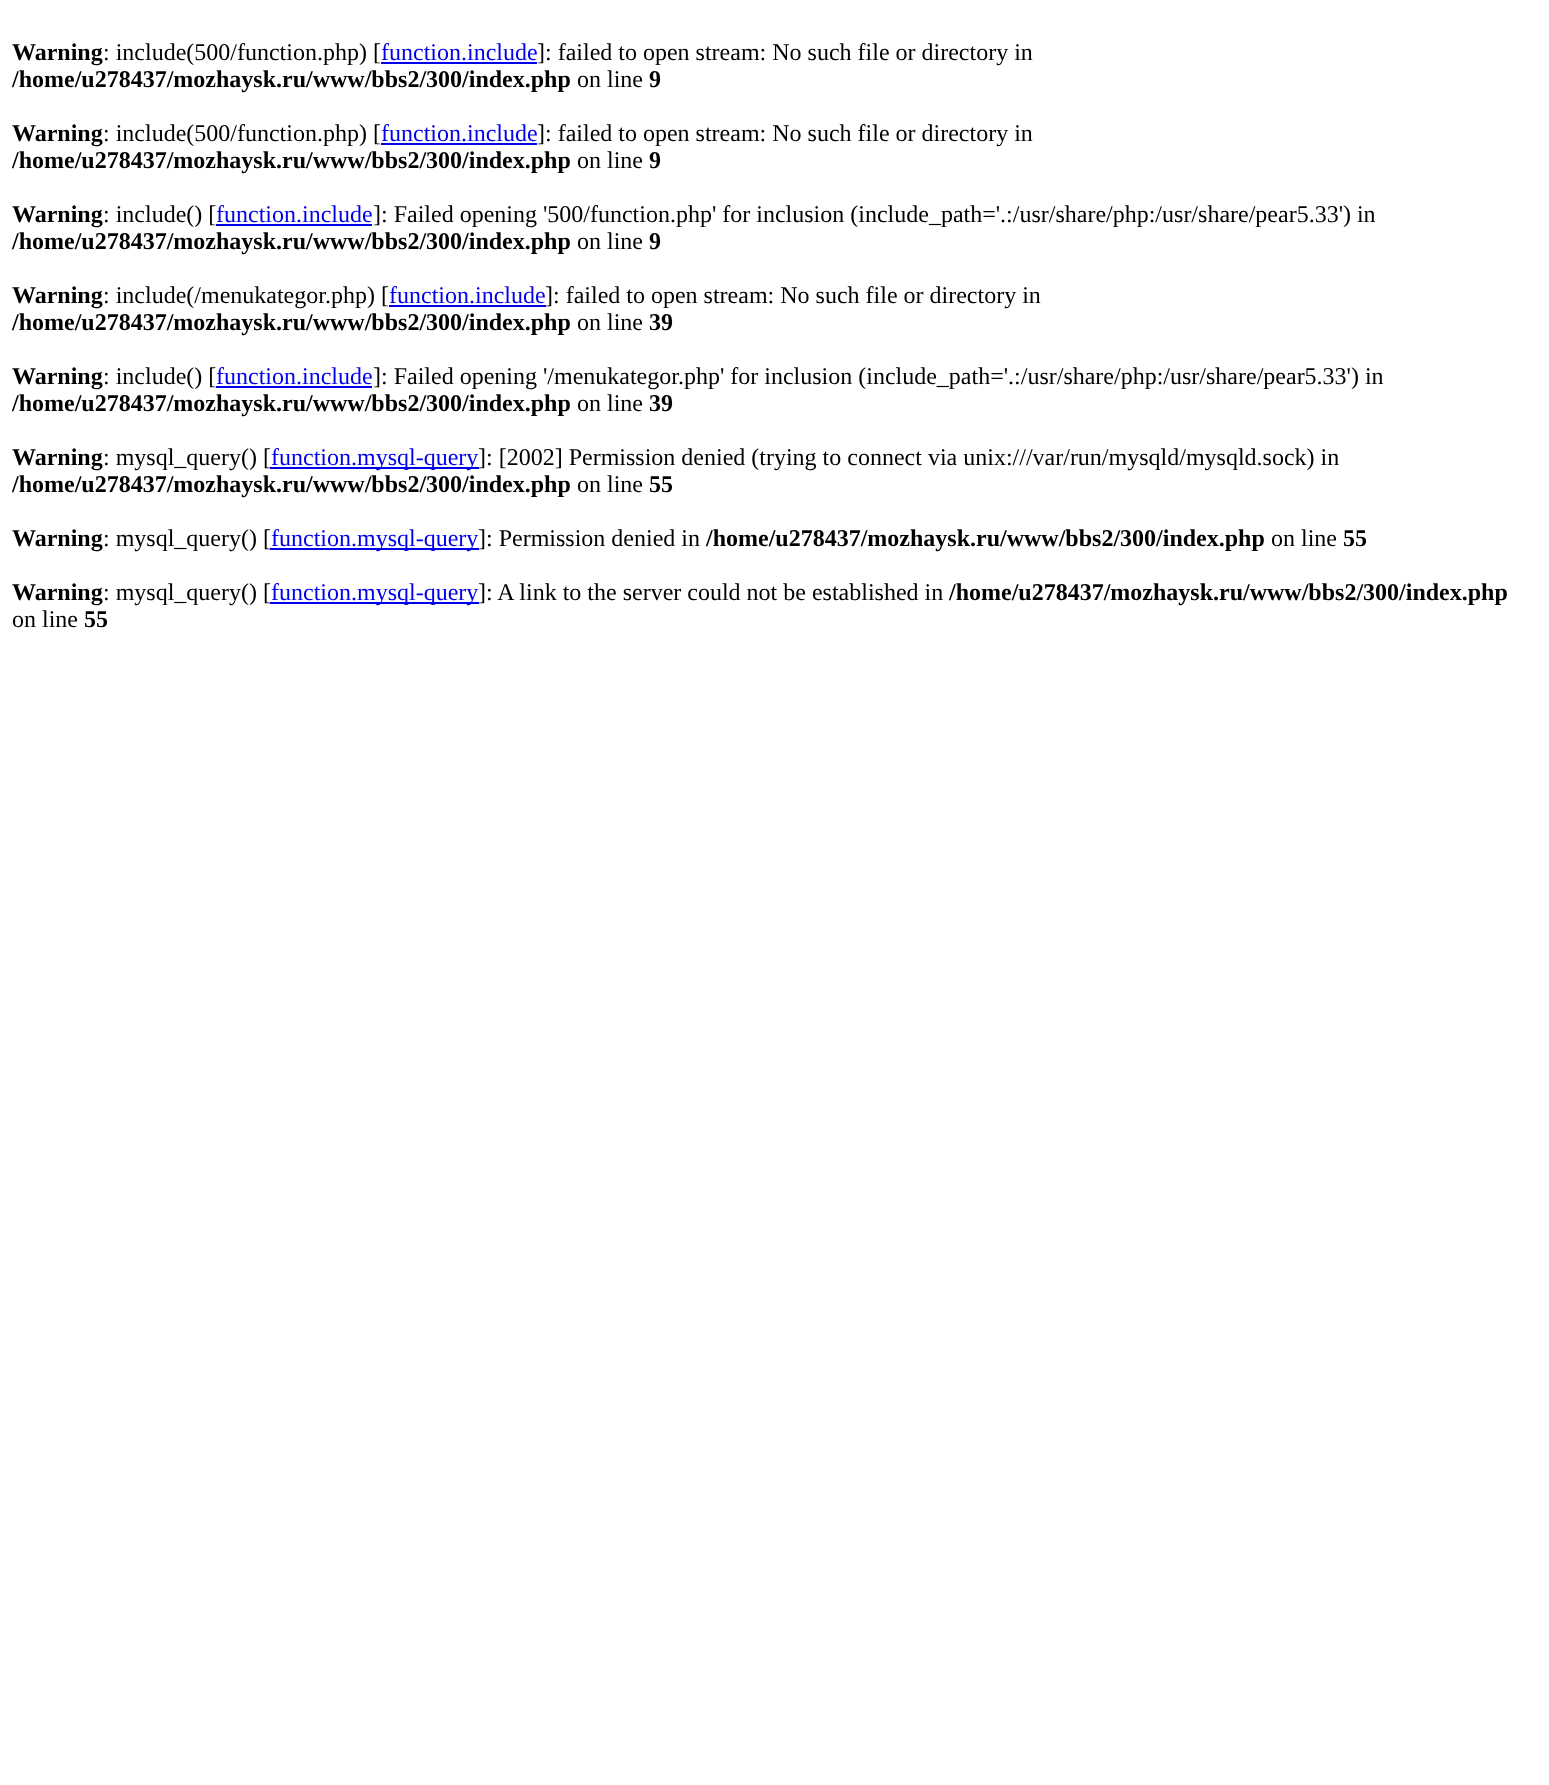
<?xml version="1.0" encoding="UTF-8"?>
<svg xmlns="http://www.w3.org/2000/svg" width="1549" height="1785">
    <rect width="100%" height="100%" fill="#FFFFFF"/>
    <text x="12" y="60" font-family="Liberation Serif" font-size="24" font-weight="700" fill="#000000">Warning</text>
    <text x="103" y="60" font-family="Liberation Serif" font-size="24" fill="#000000">: include(500/function.php) [</text>
    <text x="381" y="60" font-family="Liberation Serif" font-size="24" fill="#0000EE">function.include</text>
    <rect x="381" y="62" width="156" height="2" fill="#0000EE"/>
    <text x="537" y="60" font-family="Liberation Serif" font-size="24" fill="#000000">]: failed to open stream: No such file or directory in</text>
    <text x="12" y="87" font-family="Liberation Serif" font-size="24" font-weight="700" fill="#000000">/home/u278437/mozhaysk.ru/www/bbs2/300/index.php</text>
    <text x="577" y="87" font-family="Liberation Serif" font-size="24" fill="#000000">on line</text>
    <text x="649" y="87" font-family="Liberation Serif" font-size="24" font-weight="700" fill="#000000">9</text>
    <text x="12" y="141" font-family="Liberation Serif" font-size="24" font-weight="700" fill="#000000">Warning</text>
    <text x="103" y="141" font-family="Liberation Serif" font-size="24" fill="#000000">: include(500/function.php) [</text>
    <text x="381" y="141" font-family="Liberation Serif" font-size="24" fill="#0000EE">function.include</text>
    <rect x="381" y="143" width="156" height="2" fill="#0000EE"/>
    <text x="537" y="141" font-family="Liberation Serif" font-size="24" fill="#000000">]: failed to open stream: No such file or directory in</text>
    <text x="12" y="168" font-family="Liberation Serif" font-size="24" font-weight="700" fill="#000000">/home/u278437/mozhaysk.ru/www/bbs2/300/index.php</text>
    <text x="577" y="168" font-family="Liberation Serif" font-size="24" fill="#000000">on line</text>
    <text x="649" y="168" font-family="Liberation Serif" font-size="24" font-weight="700" fill="#000000">9</text>
    <text x="12" y="222" font-family="Liberation Serif" font-size="24" font-weight="700" fill="#000000">Warning</text>
    <text x="103" y="222" font-family="Liberation Serif" font-size="24" fill="#000000">: include() [</text>
    <text x="216" y="222" font-family="Liberation Serif" font-size="24" fill="#0000EE">function.include</text>
    <rect x="216" y="224" width="156" height="2" fill="#0000EE"/>
    <text x="373" y="222" font-family="Liberation Serif" font-size="24" fill="#000000">]: Failed opening '500/function.php' for inclusion (include_path='.:/usr/share/php:/usr/share/pear5.33') in</text>
    <text x="12" y="249" font-family="Liberation Serif" font-size="24" font-weight="700" fill="#000000">/home/u278437/mozhaysk.ru/www/bbs2/300/index.php</text>
    <text x="577" y="249" font-family="Liberation Serif" font-size="24" fill="#000000">on line</text>
    <text x="649" y="249" font-family="Liberation Serif" font-size="24" font-weight="700" fill="#000000">9</text>
    <text x="12" y="303" font-family="Liberation Serif" font-size="24" font-weight="700" fill="#000000">Warning</text>
    <text x="103" y="303" font-family="Liberation Serif" font-size="24" fill="#000000">: include(/menukategor.php) [</text>
    <text x="389" y="303" font-family="Liberation Serif" font-size="24" fill="#0000EE">function.include</text>
    <rect x="389" y="305" width="157" height="2" fill="#0000EE"/>
    <text x="545" y="303" font-family="Liberation Serif" font-size="24" fill="#000000">]: failed to open stream: No such file or directory in</text>
    <text x="12" y="330" font-family="Liberation Serif" font-size="24" font-weight="700" fill="#000000">/home/u278437/mozhaysk.ru/www/bbs2/300/index.php</text>
    <text x="577" y="330" font-family="Liberation Serif" font-size="24" fill="#000000">on line</text>
    <text x="649" y="330" font-family="Liberation Serif" font-size="24" font-weight="700" fill="#000000">39</text>
    <text x="12" y="384" font-family="Liberation Serif" font-size="24" font-weight="700" fill="#000000">Warning</text>
    <text x="103" y="384" font-family="Liberation Serif" font-size="24" fill="#000000">: include() [</text>
    <text x="216" y="384" font-family="Liberation Serif" font-size="24" fill="#0000EE">function.include</text>
    <rect x="216" y="386" width="156" height="2" fill="#0000EE"/>
    <text x="373" y="384" font-family="Liberation Serif" font-size="24" fill="#000000">]: Failed opening '/menukategor.php' for inclusion (include_path='.:/usr/share/php:/usr/share/pear5.33') in</text>
    <text x="12" y="411" font-family="Liberation Serif" font-size="24" font-weight="700" fill="#000000">/home/u278437/mozhaysk.ru/www/bbs2/300/index.php</text>
    <text x="577" y="411" font-family="Liberation Serif" font-size="24" fill="#000000">on line</text>
    <text x="649" y="411" font-family="Liberation Serif" font-size="24" font-weight="700" fill="#000000">39</text>
    <text x="12" y="465" font-family="Liberation Serif" font-size="24" font-weight="700" fill="#000000">Warning</text>
    <text x="103" y="465" font-family="Liberation Serif" font-size="24" fill="#000000">: mysql_query() [</text>
    <rect x="270" y="467" width="209" height="2" fill="#0000EE"/>
    <text x="271" y="465" font-family="Liberation Serif" font-size="24" fill="#0000EE">function.mysql-query</text>
    <text x="478" y="465" font-family="Liberation Serif" font-size="24" fill="#000000">]: [2002] Permission denied (trying to connect via unix:///var/run/mysqld/mysqld.sock) in</text>
    <text x="12" y="492" font-family="Liberation Serif" font-size="24" font-weight="700" fill="#000000">/home/u278437/mozhaysk.ru/www/bbs2/300/index.php</text>
    <text x="577" y="492" font-family="Liberation Serif" font-size="24" fill="#000000">on line</text>
    <text x="649" y="492" font-family="Liberation Serif" font-size="24" font-weight="700" fill="#000000">55</text>
    <text x="12" y="546" font-family="Liberation Serif" font-size="24" font-weight="700" fill="#000000">Warning</text>
    <text x="103" y="546" font-family="Liberation Serif" font-size="24" fill="#000000">: mysql_query() [</text>
    <rect x="270" y="548" width="209" height="2" fill="#0000EE"/>
    <text x="271" y="546" font-family="Liberation Serif" font-size="24" fill="#0000EE">function.mysql-query</text>
    <text x="478" y="546" font-family="Liberation Serif" font-size="24" fill="#000000">]: Permission denied in</text>
    <text x="706" y="546" font-family="Liberation Serif" font-size="24" font-weight="700" fill="#000000">/home/u278437/mozhaysk.ru/www/bbs2/300/index.php</text>
    <text x="1271" y="546" font-family="Liberation Serif" font-size="24" fill="#000000">on line</text>
    <text x="1343" y="546" font-family="Liberation Serif" font-size="24" font-weight="700" fill="#000000">55</text>
    <text x="12" y="600" font-family="Liberation Serif" font-size="24" font-weight="700" fill="#000000">Warning</text>
    <text x="103" y="600" font-family="Liberation Serif" font-size="24" fill="#000000">: mysql_query() [</text>
    <rect x="270" y="602" width="209" height="2" fill="#0000EE"/>
    <text x="271" y="600" font-family="Liberation Serif" font-size="24" fill="#0000EE">function.mysql-query</text>
    <text x="478" y="600" font-family="Liberation Serif" font-size="24" fill="#000000">]: A link to the server could not be established in</text>
    <text x="949" y="600" font-family="Liberation Serif" font-size="24" font-weight="700" fill="#000000">/home/u278437/mozhaysk.ru/www/bbs2/300/index.php</text>
    <text x="12" y="627" font-family="Liberation Serif" font-size="24" fill="#000000">on line</text>
    <text x="84" y="627" font-family="Liberation Serif" font-size="24" font-weight="700" fill="#000000">55</text>
</svg>
